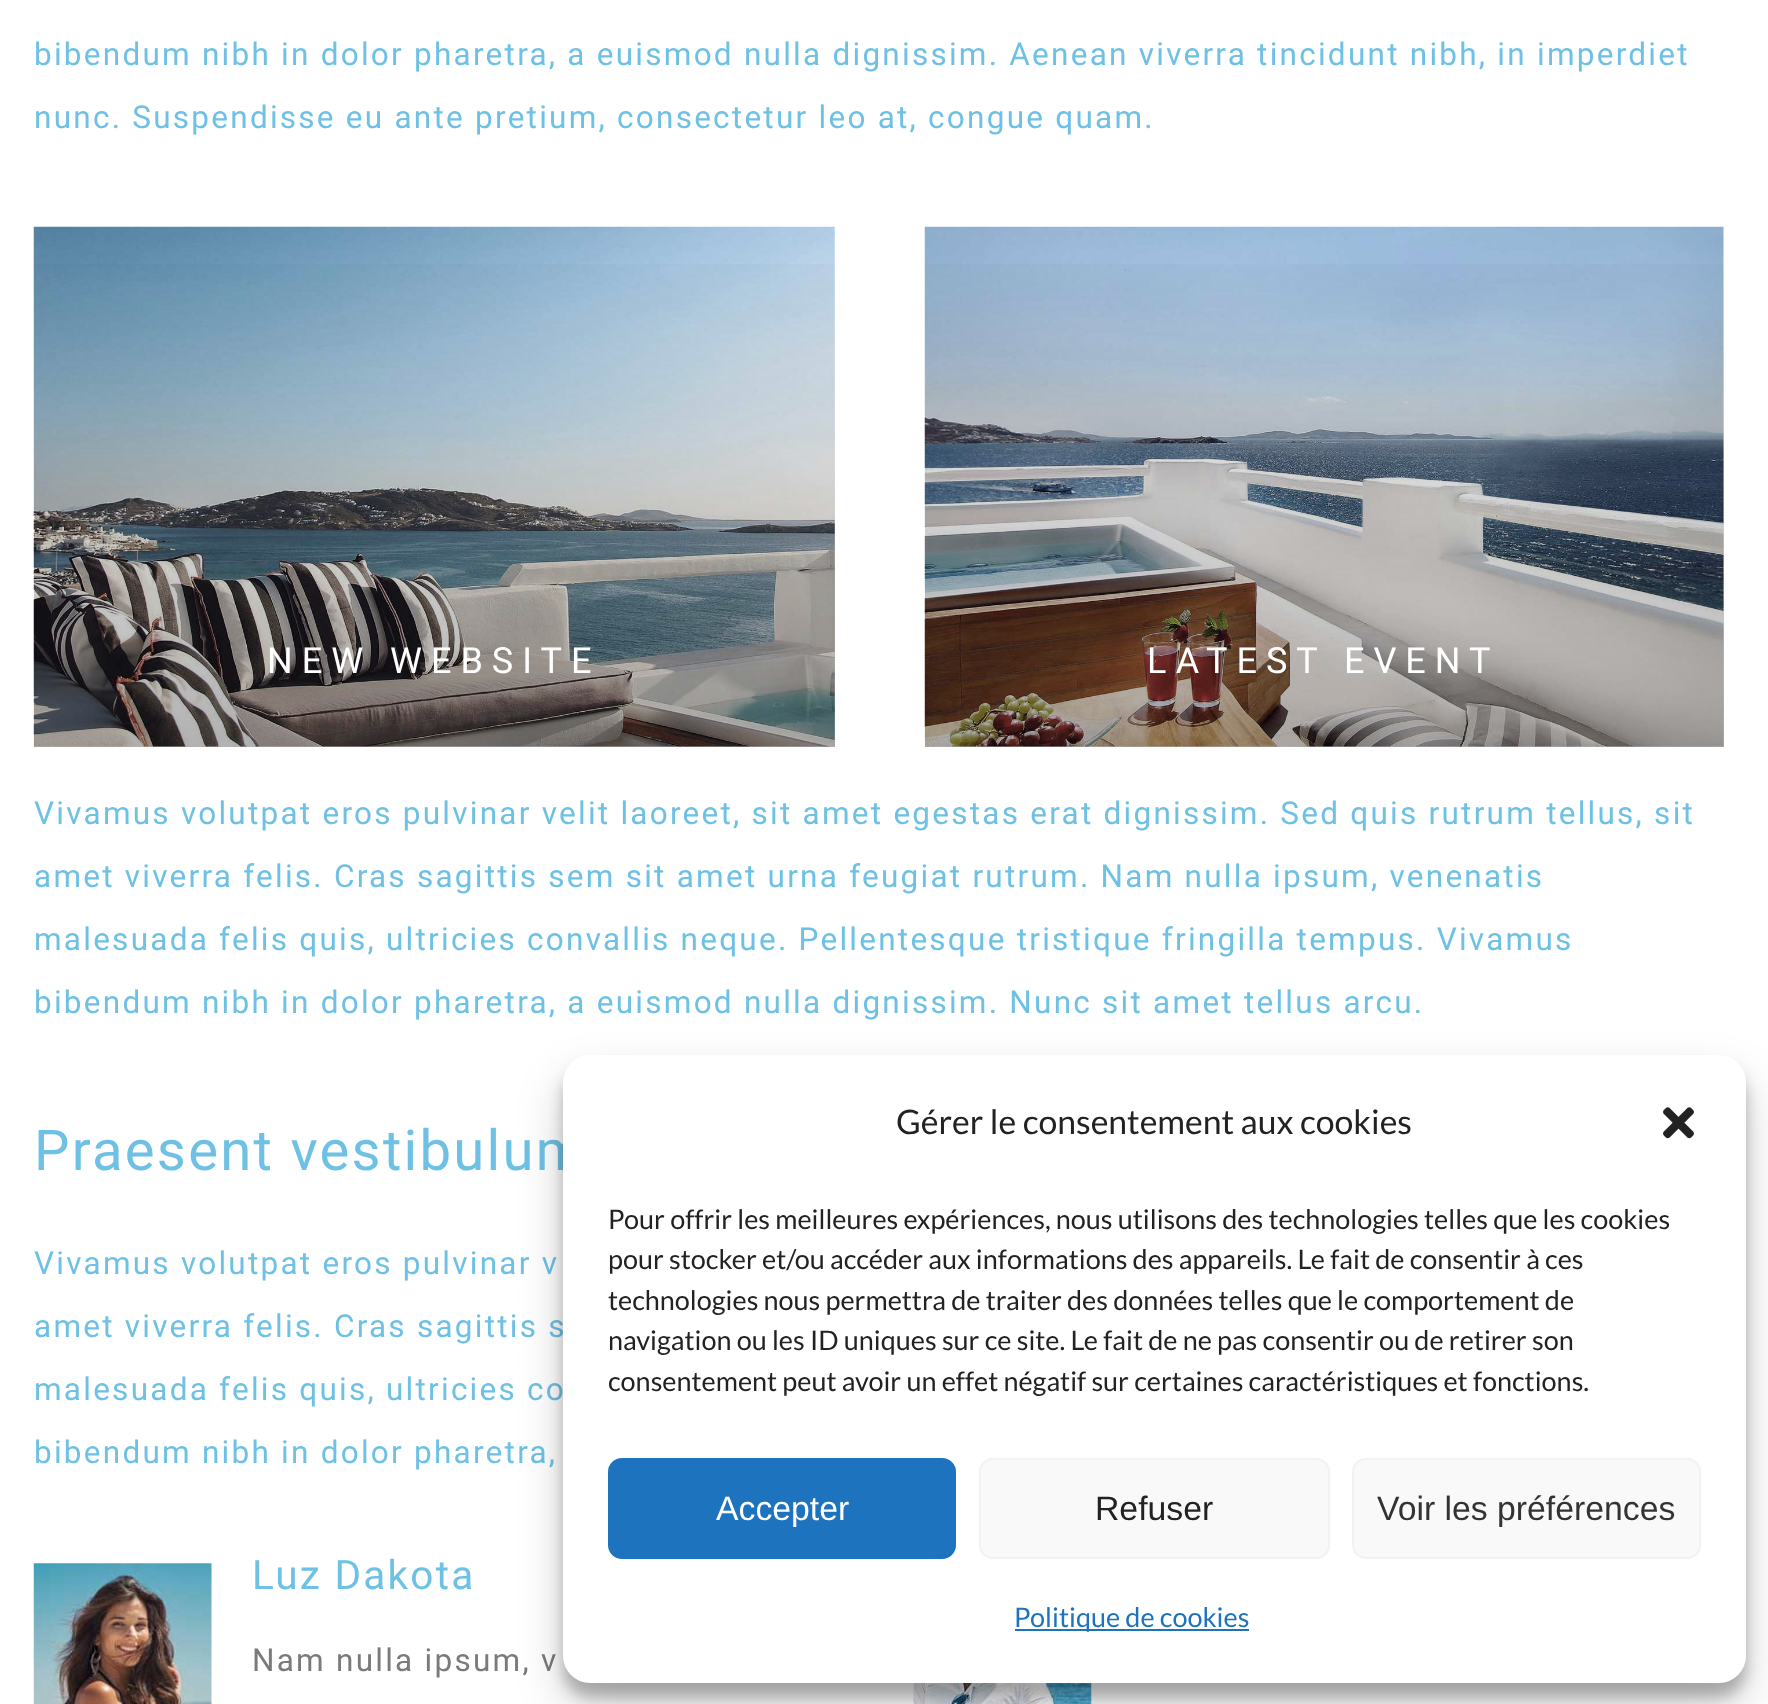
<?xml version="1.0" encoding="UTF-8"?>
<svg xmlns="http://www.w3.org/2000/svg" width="1768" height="1704">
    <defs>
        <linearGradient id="g1" gradientUnits="userSpaceOnUse" x1="434" y1="227" x2="434" y2="747"><stop offset="0" stop-color="#000000" stop-opacity="0"/><stop offset="1" stop-color="#000000" stop-opacity="0.3"/></linearGradient>
        <linearGradient id="g2" gradientUnits="userSpaceOnUse" x1="1324" y1="227" x2="1324" y2="747"><stop offset="0" stop-color="#000000" stop-opacity="0"/><stop offset="1" stop-color="#000000" stop-opacity="0.3"/></linearGradient>
        <filter id="blur1" x="-50%" y="-200%" width="200%" height="500%"><feGaussianBlur stdDeviation="7"/></filter>
        <filter id="blur2" x="-50%" y="-200%" width="200%" height="500%"><feGaussianBlur stdDeviation="22.5"/></filter>
    </defs>
    <rect width="100%" height="100%" fill="#FFFFFF"/>
    <text x="34" y="65" font-family="Roboto" font-size="31.5" letter-spacing="2.25" fill="#6EC1E4">bibendum nibh in dolor pharetra, a euismod nulla dignissim. Aenean viverra tincidunt nibh, in imperdiet</text>
    <text x="34" y="128" font-family="Roboto" font-size="31.5" letter-spacing="2.25" fill="#6EC1E4">nunc. Suspendisse eu ante pretium, consectetur leo at, congue quam.</text>
    <image x="33" y="226" width="802" height="521" href="img_01.png"/>
    <rect x="34" y="264" width="801" height="483" fill="url(#g1)"/>
    <text x="267" y="673" font-family="Roboto" font-size="36" letter-spacing="9" fill="#FFFFFF">NEW WEBSITE</text>
    <image x="924" y="226" width="800" height="521" href="img_02.png"/>
    <rect x="925" y="264" width="799" height="483" fill="url(#g2)"/>
    <text x="1147" y="673" font-family="Roboto" font-size="36" letter-spacing="9" fill="#FFFFFF">LATEST EVENT</text>
    <text x="34" y="824" font-family="Roboto" font-size="31.5" letter-spacing="2.25" fill="#6EC1E4">Vivamus volutpat eros pulvinar velit laoreet, sit amet egestas erat dignissim. Sed quis rutrum tellus, sit</text>
    <text x="34" y="887" font-family="Roboto" font-size="31.5" letter-spacing="2.25" fill="#6EC1E4">amet viverra felis. Cras sagittis sem sit amet urna feugiat rutrum. Nam nulla ipsum, venenatis</text>
    <text x="34" y="950" font-family="Roboto" font-size="31.5" letter-spacing="2.25" fill="#6EC1E4">malesuada felis quis, ultricies convallis neque. Pellentesque tristique fringilla tempus. Vivamus</text>
    <text x="34" y="1013" font-family="Roboto" font-size="31.5" letter-spacing="2.25" fill="#6EC1E4">bibendum nibh in dolor pharetra, a euismod nulla dignissim. Nunc sit amet tellus arcu.</text>
    <text x="34" y="1170" font-family="Roboto" font-size="56.25" letter-spacing="2.25" fill="#6EC1E4">Praesent vestibulum</text>
    <text x="34" y="1274" font-family="Roboto" font-size="31.5" letter-spacing="2.25" fill="#6EC1E4">Vivamus volutpat eros pulvinar v</text>
    <text x="34" y="1337" font-family="Roboto" font-size="31.5" letter-spacing="2.25" fill="#6EC1E4">amet viverra felis. Cras sagittis s</text>
    <text x="34" y="1400" font-family="Roboto" font-size="31.5" letter-spacing="2.25" fill="#6EC1E4">malesuada felis quis, ultricies co</text>
    <text x="34" y="1463" font-family="Roboto" font-size="31.5" letter-spacing="2.25" fill="#6EC1E4">bibendum nibh in dolor pharetra,</text>
    <image x="33" y="1563" width="179" height="141" href="img_03.png"/>
    <text x="252" y="1589" font-family="Roboto" font-size="40.5" letter-spacing="2.25" fill="#6EC1E4">Luz Dakota</text>
    <text x="252" y="1671" font-family="Roboto" font-size="31.5" letter-spacing="2.25" fill="#7A7A7A">Nam nulla ipsum, v</text>
    <image x="913" y="1683" width="179" height="21" href="img_04.png"/>
    <rect x="563" y="1069" width="1183" height="628" rx="27" fill="#000000" fill-opacity="0.23" filter="url(#blur1)"/>
    <rect x="563" y="1078" width="1183" height="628" rx="27" fill="#000000" fill-opacity="0.19" filter="url(#blur2)"/>
    <rect x="563" y="1055" width="1183" height="628" rx="27" fill="#FFFFFF"/>
    <text x="896" y="1134" font-family="Lato" font-size="33.75" fill="#222222">Gérer le consentement aux cookies</text>
    <image x="1663" y="1107" width="31" height="32" href="img_05.png"/>
    <text font-family="Lato" font-size="27" fill="#222222">
        <tspan x="608" y="1229">Pour offrir les meilleures expériences, nous utilisons des technologies telles que les cookies</tspan>
        <tspan x="608" y="1269">pour stocker et/ou accéder aux informations des appareils. Le fait de consentir à ces</tspan>
        <tspan x="608" y="1310">technologies nous permettra de traiter des données telles que le comportement de</tspan>
        <tspan x="608" y="1350">navigation ou les ID uniques sur ce site. Le fait de ne pas consentir ou de retirer son</tspan>
        <tspan x="608" y="1391">consentement peut avoir un effet négatif sur certaines caractéristiques et fonctions.</tspan>
    </text>
    <rect x="609" y="1459" width="346" height="99" rx="13" fill="#1E73BE" stroke="#1E73BE" stroke-width="2"/>
    <text x="716" y="1520" font-family="Liberation Sans" font-size="33.75" fill="#FFFFFF">Accepter</text>
    <rect x="980" y="1459" width="349" height="99" rx="13" fill="#F9F9F9" stroke="#F2F2F2" stroke-width="2"/>
    <text x="1095" y="1520" font-family="Liberation Sans" font-size="33.75" fill="#222222">Refuser</text>
    <rect x="1353" y="1459" width="347" height="99" rx="13" fill="#F9F9F9" stroke="#F2F2F2" stroke-width="2"/>
    <text x="1377" y="1520" font-family="Liberation Sans" font-size="33.75" fill="#333333">Voir les préférences</text>
    <rect x="1015" y="1629" width="234" height="2" fill="#1E73BE"/>
    <text x="1014" y="1627" font-family="Lato" font-size="27" fill="#1E73BE">Politique de cookies</text>
</svg>
